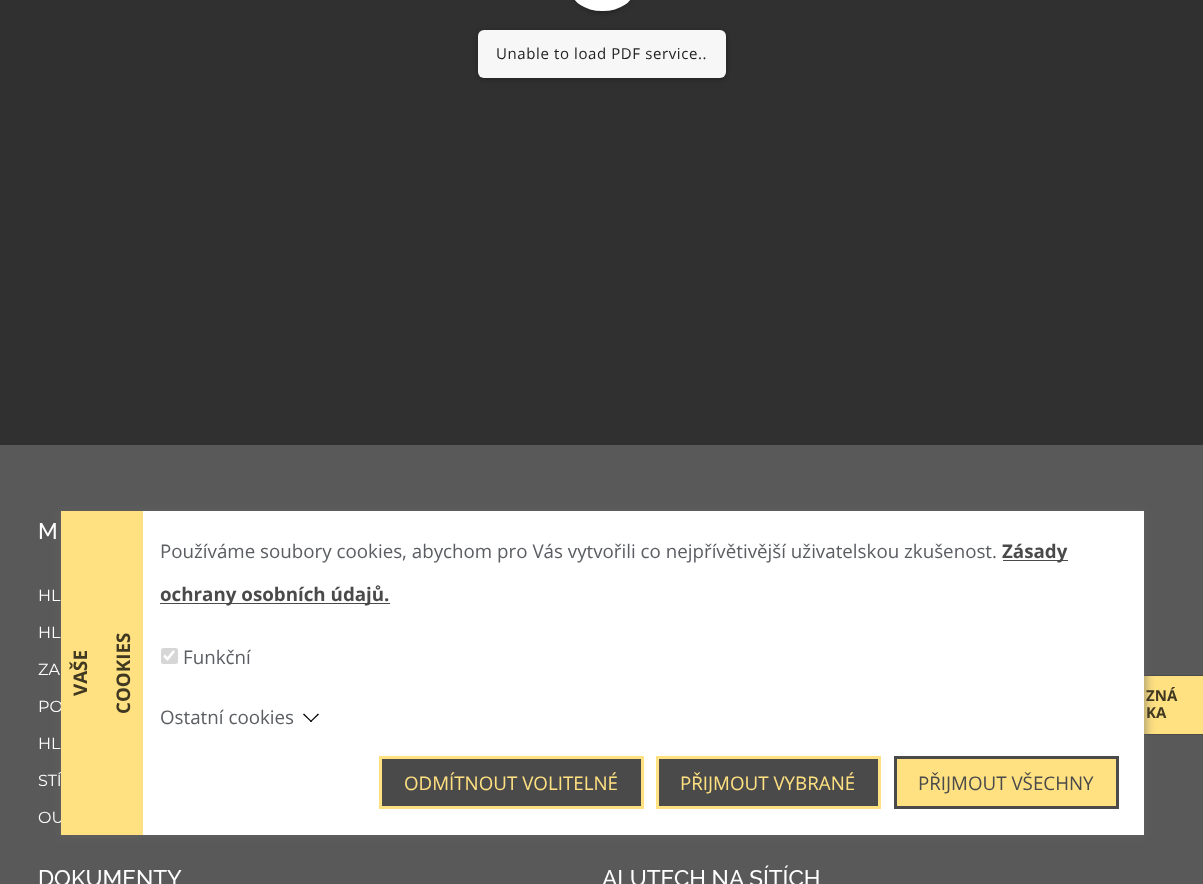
<svg xmlns="http://www.w3.org/2000/svg" width="1203" height="884">
<style>
.a{font:15px Open Sans;letter-spacing:0.6px;fill:#222}
.b{font:100 22.5px Raleway;fill:#fff}
.c{font:100 16px Montserrat;fill:#fff}
.d{font:bold 18.75px Open Sans;fill:#403821}
.e{font:18.75px Open Sans;fill:#5a5d62}
.f{font:bold 18.75px Open Sans;fill:#4a4a4a}
.g{font:18.75px Open Sans;fill:#ffe182}
.h{font:18.75px Open Sans;fill:#4a4a4a}
.i{font:bold 15px Open Sans;fill:#403821}
</style>
<rect width="100%" height="100%" fill="#303030"/>
<rect fill="#0000004d" filter="blur(2.5px)" x="571" y="-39" width="63" height="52" rx="31.5"/>
<rect fill="#fff" x="571" y="-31" width="63" height="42" rx="31"/>
<rect fill="#0000004d" filter="blur(2.5px)" x="478" y="31" width="248" height="48" rx="6"/>
<rect fill="#f7f7f7" x="478" y="30" width="248" height="48" rx="6"/>
<path fill="#595959" d="M0 445h1203v439H0z"/>
<path fill="#ffe182" d="M1144 676h59v58H1144z"/>
<path fill="none" stroke="#4a4a4a" d="M1029.5 675.5h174v59H1029.5z"/>
<path fill="#63636394" filter="blur(5px)" d="M59 509h1087v329H59z"/>
<path fill="#fff" d="M143 511h1001v324H143z"/>
<path fill="#4a4a4a" d="M1003 560h65v1H1003z"/>
<path fill="#4a4a4a" d="M160 603h230v1H160z"/>
<rect fill="#d6d6d6" x="161" y="648" width="17" height="16" rx="2.5"/>
<path fill="none" stroke="#fff" stroke-width="2.6" d="M164 655.5l3.5 3.5l6.5-8"/>
<path fill="#000" d="M318 713.5l1 1l-8 7.5l-1-.5z"/>
<path fill="#000" d="M304 713.5l8 8l-1 .5l-8-7.5z"/>
<path fill="#4a4a4a" stroke="#ffe182" stroke-width="3" d="M380.5 757.5h262v50H380.5z"/>
<path fill="#4a4a4a" stroke="#ffe182" stroke-width="3" d="M657.5 757.5h222v50H657.5z"/>
<path fill="#ffe182" stroke="#4a4a4a" stroke-width="3" d="M895.5 757.5h222v50H895.5z"/>
<text class="a" x="496" y="59">Unable to load PDF service..</text>
<text class="b" x="38" y="539">M</text>
<text class="c" x="38" y="601">HL</text>
<text class="c" x="38" y="638">HL</text>
<text class="c" x="38" y="675">ZA</text>
<text class="c" x="38" y="712">PO</text>
<text class="c" x="38" y="749">HL</text>
<text class="c" x="38" y="786">STÍ</text>
<text class="c" x="38" y="823">OU</text>
<text class="b" x="38" y="886">DOKUMENTY</text>
<text class="b" x="602" y="886">ALUTECH NA SÍTÍCH</text>
<path fill="#ffe182" d="M61 511h82v324H61z"/>
<text class="d" x="87" y="696" transform="rotate(-90 87 696)">VAŠE</text>
<text class="d" x="130" y="714" transform="rotate(-90 130 714)">COOKIES</text>
<text class="e" x="160" y="558">Používáme soubory cookies, abychom pro Vás vytvořili co nejpřívětivější uživatelskou zkušenost.</text>
<text class="f" x="1002" y="558">Zásady</text>
<text class="f" x="160" y="601">ochrany osobních údajů.</text>
<text class="e" x="183" y="664">Funkční</text>
<text class="e" x="160" y="724">Ostatní cookies</text>
<text class="g" x="404" y="790">ODMÍTNOUT VOLITELNÉ</text>
<text class="g" x="680" y="790">PŘIJMOUT VYBRANÉ</text>
<text class="h" x="918" y="790">PŘIJMOUT VŠECHNY</text>
<text class="i" x="1146" y="701">ZNÁ</text>
<text class="i" x="1146" y="718">KA</text>
</svg>
